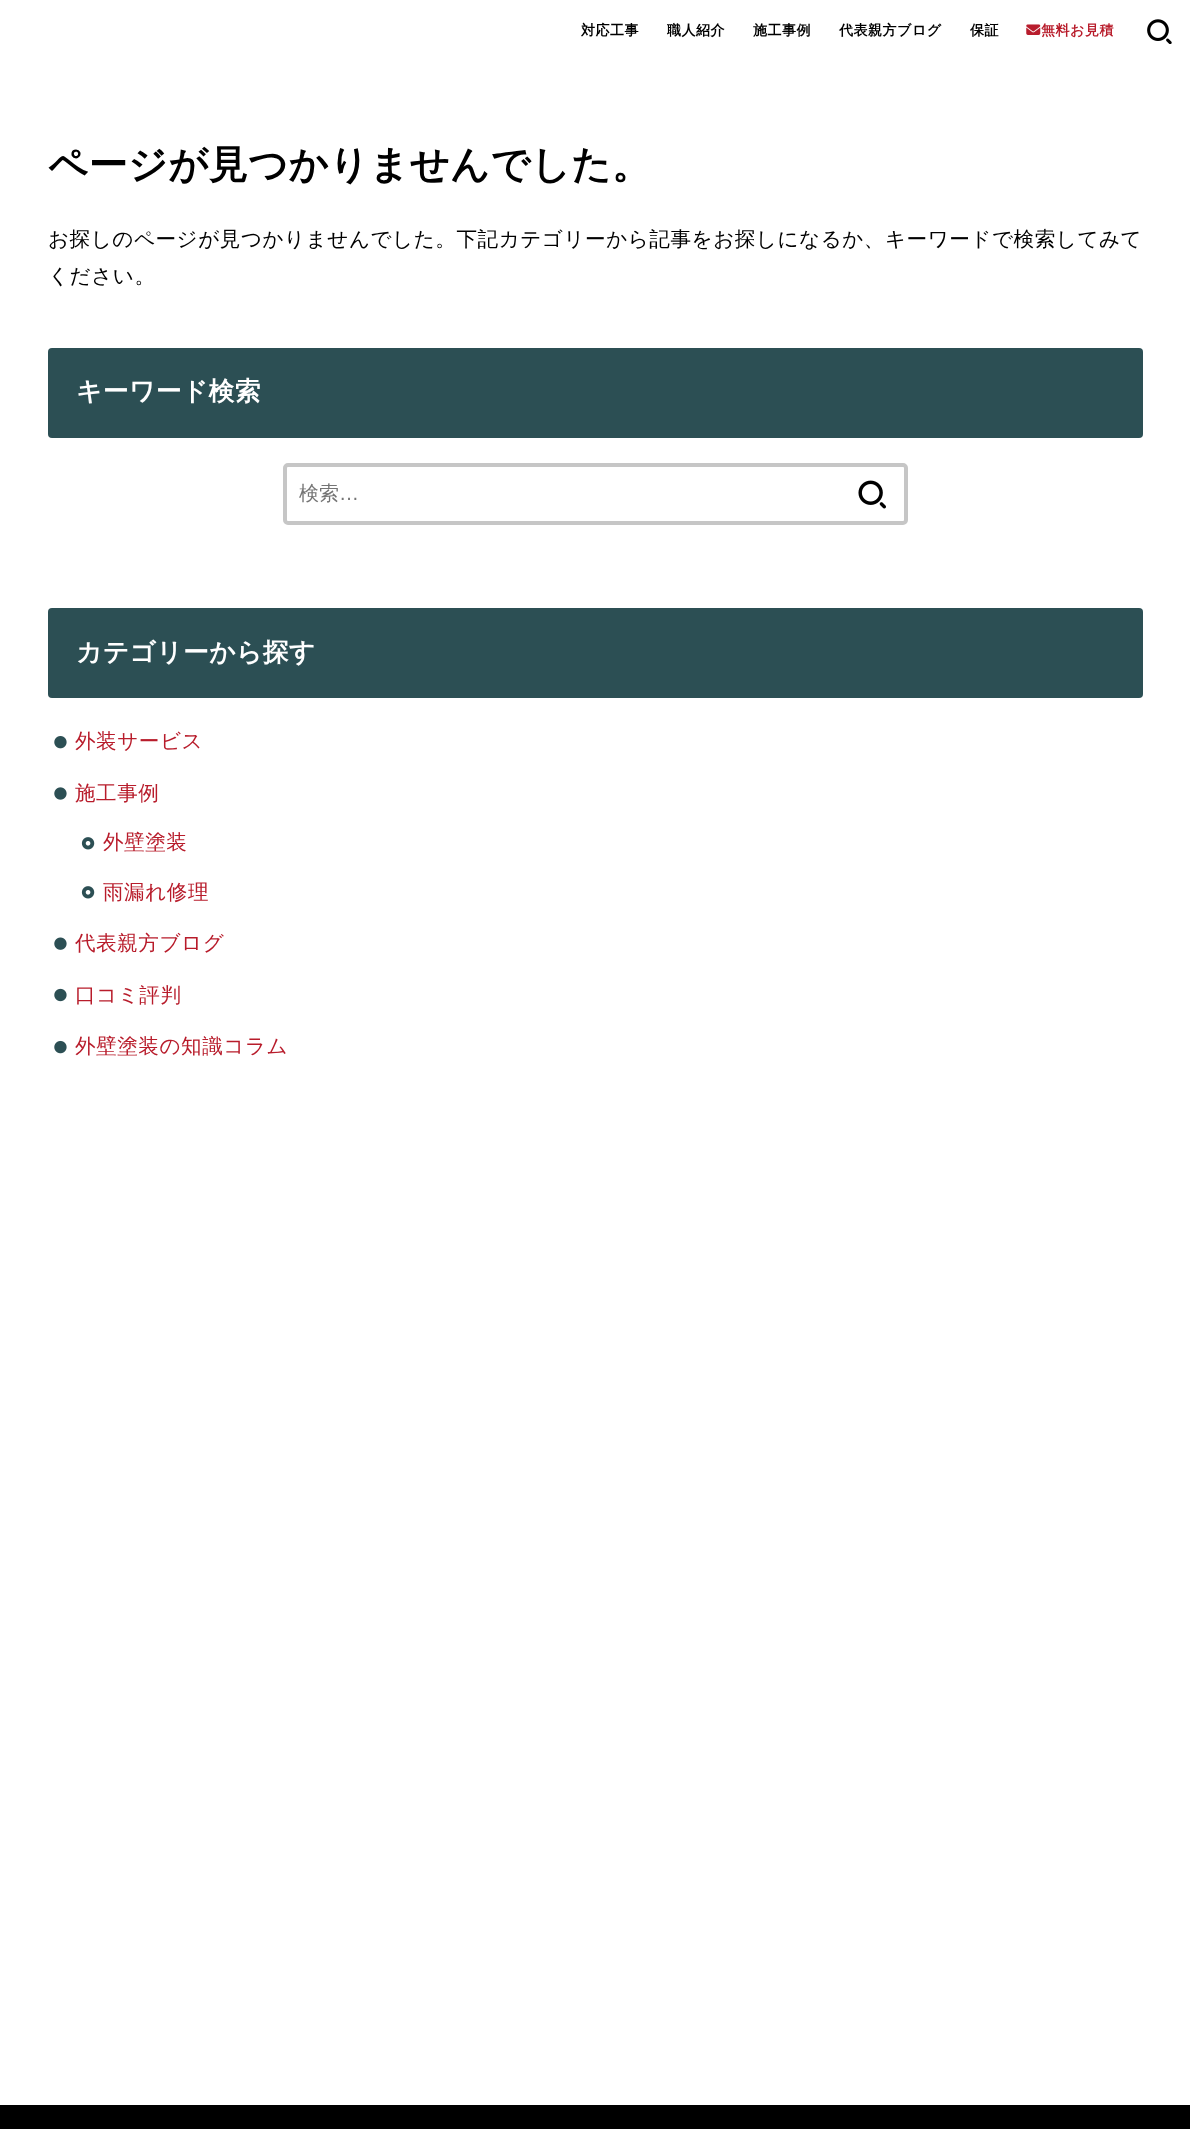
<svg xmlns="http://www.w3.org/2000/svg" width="1190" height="2129">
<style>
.a{font:bold 14px WenQuanYi Zen Hei;letter-spacing:0.52px;fill:#000}
.b{font:bold 14px WenQuanYi Zen Hei;letter-spacing:0.52px;fill:#b81c2b}
.c{font:bold 39.1px WenQuanYi Zen Hei;letter-spacing:0.4px;fill:#000}
.d{font:500 20.6px WenQuanYi Zen Hei;letter-spacing:0.52px;fill:#000}
.e{font:bold 25.75px WenQuanYi Zen Hei;letter-spacing:0.4px;fill:#fff}
.f{font:500 20px WenQuanYi Zen Hei;fill:#757575}
.g{font:20px Liberation Sans;fill:#757575}
.h{font:500 20.6px WenQuanYi Zen Hei;letter-spacing:0.52px;fill:#b81c2b}
</style>
<rect width="100%" height="100%" fill="#000"/>
<path fill="#fff" d="M0 0h1190v2105H0z"/>
<image href="1.png" x="1026" y="24" width="15" height="11"/>
<image href="2.png" x="1147" y="19" width="25" height="25"/>
<rect fill="#2c4f54" x="48" y="348" width="1095" height="90" rx="4"/>
<rect fill="none" stroke="#c6c6c6" stroke-width="4" x="285" y="465" width="621" height="58" rx="3"/>
<image href="3.png" x="858" y="480" width="28" height="29"/>
<rect fill="#2c4f54" x="48" y="608" width="1095" height="90" rx="4"/>
<image href="4.png" x="54" y="736" width="13" height="13"/>
<image href="5.png" x="54" y="787" width="13" height="13"/>
<image href="6.png" x="81" y="837" width="14" height="13"/>
<image href="7.png" x="81" y="886" width="14" height="13"/>
<image href="8.png" x="54" y="937" width="13" height="13"/>
<image href="9.png" x="54" y="988" width="13" height="14"/>
<image href="10.png" x="54" y="1040" width="13" height="14"/>
<text class="a" x="581" y="35">対応工事</text>
<text class="a" x="667" y="35">職人紹介</text>
<text class="a" x="753" y="35">施工事例</text>
<text class="a" x="839" y="35">代表親方ブログ</text>
<text class="a" x="970" y="35">保証</text>
<text class="b" x="1041" y="35">無料お見積</text>
<text class="c" x="48" y="178">ページが見つかりませんでした。</text>
<text class="d" x="48" y="246">お探しのページが見つかりませんでした。下記カテゴリーから記事をお探しになるか、キーワードで検索してみて</text>
<text class="d" x="48" y="283">ください。</text>
<text class="e" x="76" y="400">キーワード検索</text>
<text class="f" x="299" y="500">検索</text>
<text class="g" x="339" y="500">…</text>
<text class="e" x="76" y="661">カテゴリーから探す</text>
<text class="h" x="75" y="748">外装サービス</text>
<text class="h" x="75" y="800">施工事例</text>
<text class="h" x="103" y="849">外壁塗装</text>
<text class="h" x="103" y="899">雨漏れ修理</text>
<text class="h" x="75" y="950">代表親方ブログ</text>
<text class="h" x="75" y="1002">口コミ評判</text>
<text class="h" x="75" y="1053">外壁塗装の知識コラム</text>
</svg>
